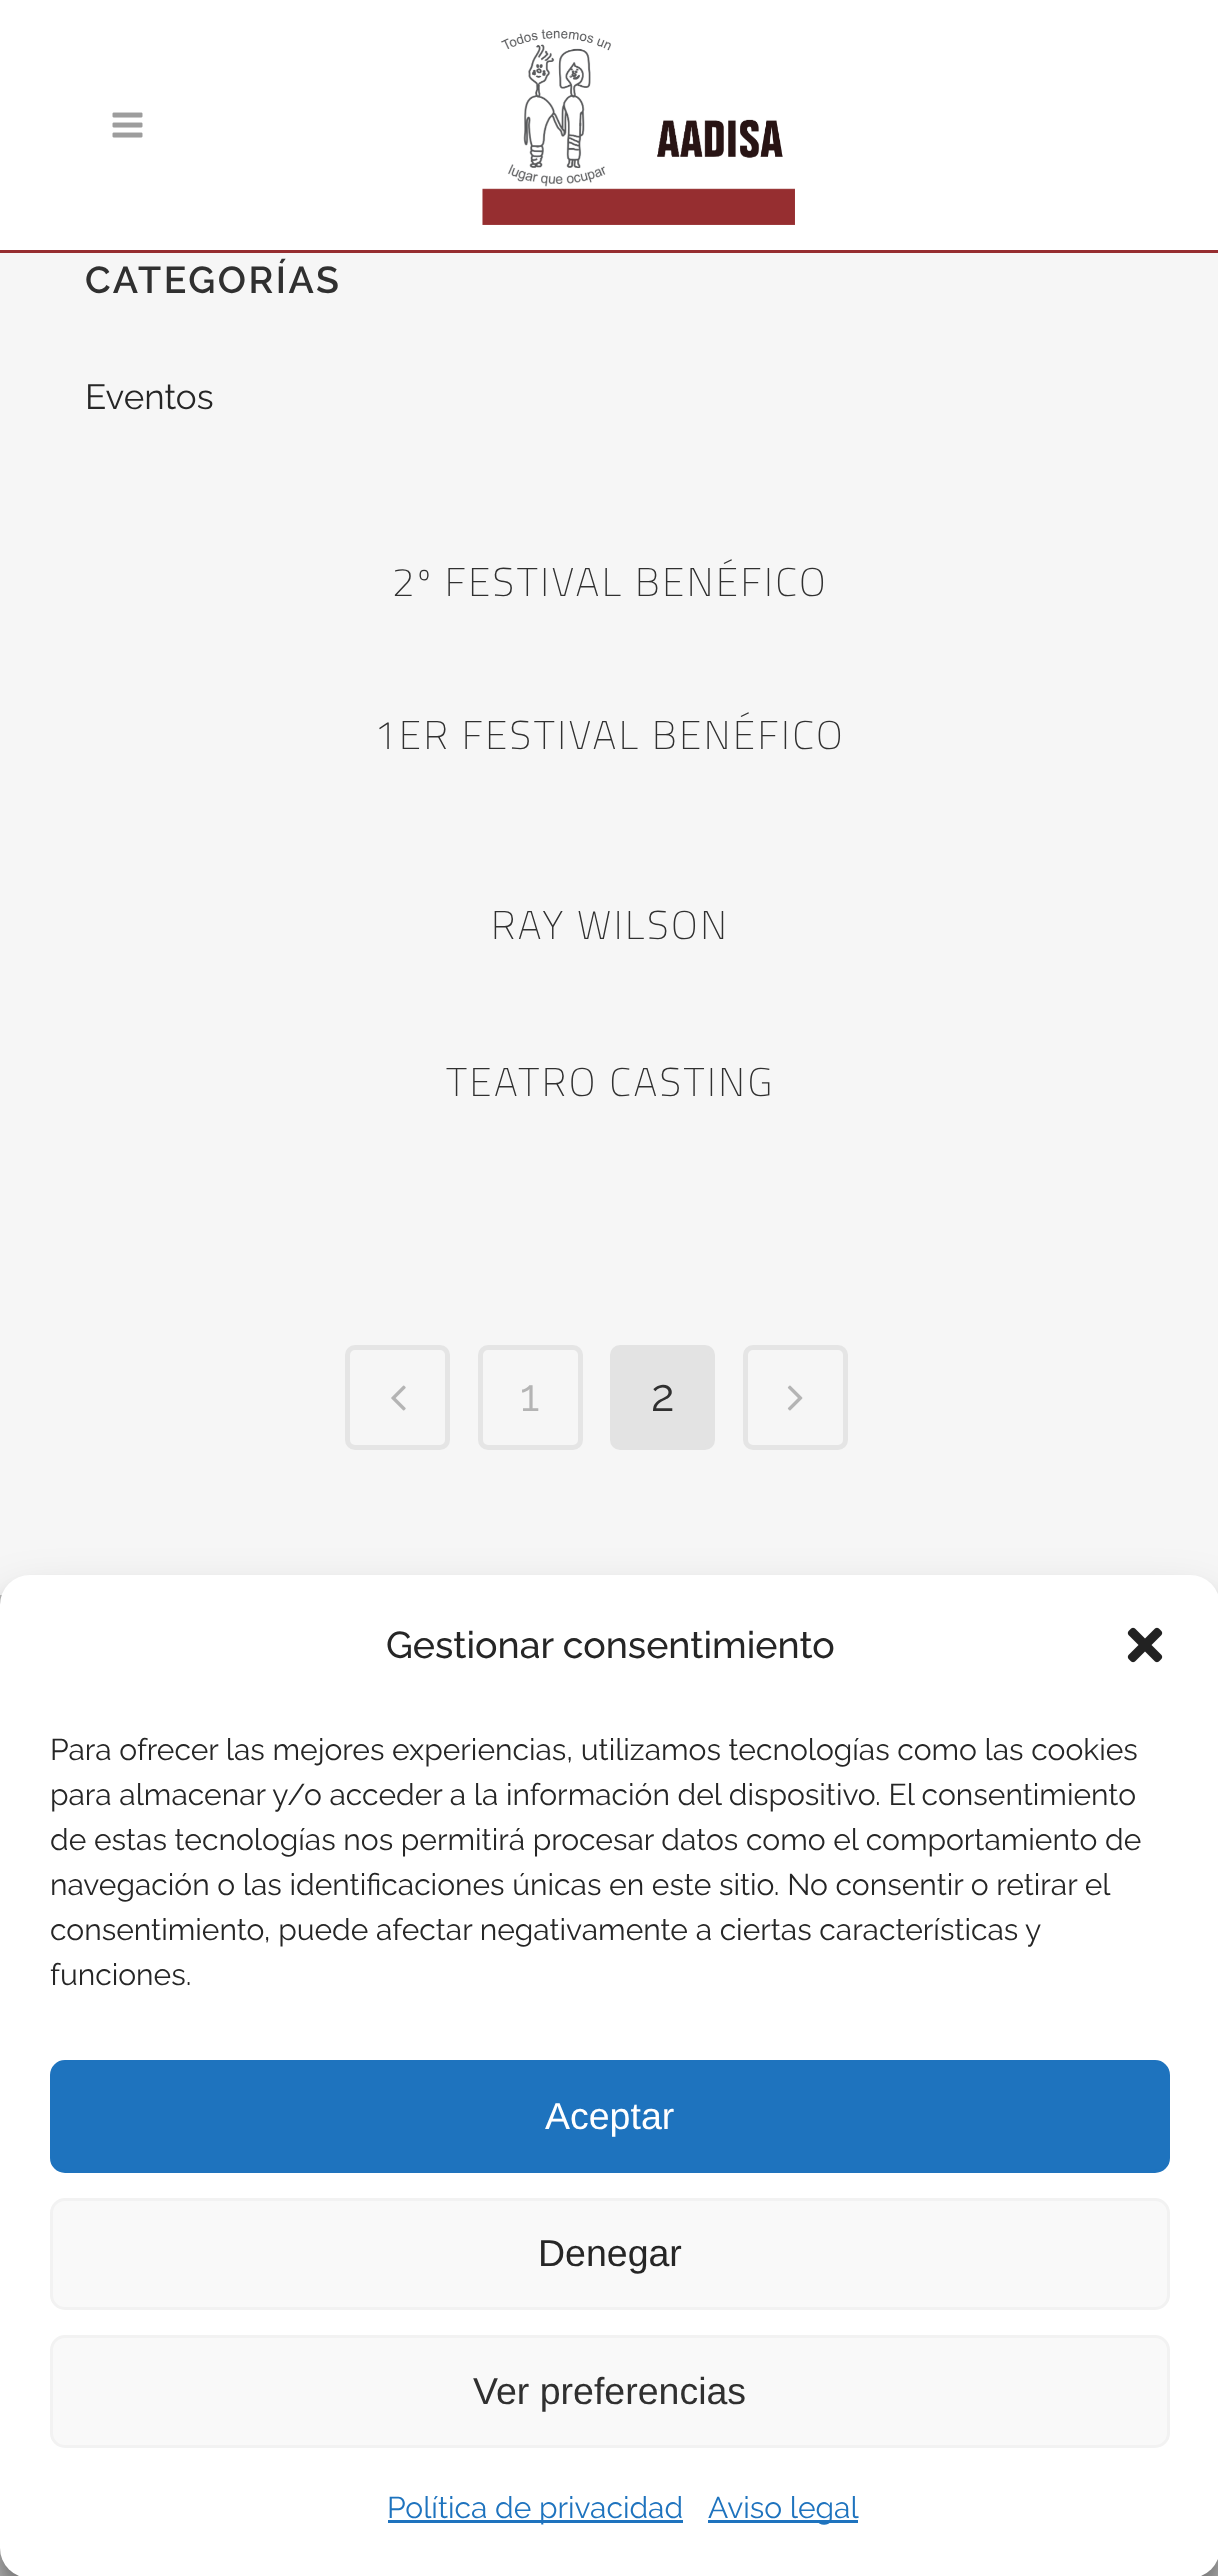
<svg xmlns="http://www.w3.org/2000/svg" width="1218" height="2576">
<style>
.a{font:600 37.5px Raleway;letter-spacing:2.5px;fill:#303030}
.b{font:35px Raleway;fill:#262626}
.c{font:200 40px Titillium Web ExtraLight;letter-spacing:2.5px;fill:#303030}
.d{font:45px Raleway;fill:#b4b4b4}
.e{font:45px Raleway;fill:#303030}
.f{font:500 37.5px Raleway;fill:#262626}
.g{font:30px Raleway;fill:#262626}
.h{font:37.5px Liberation Sans;fill:#fff}
.i{font:37.5px Liberation Sans;fill:#262626}
.j{font:37.5px Liberation Sans;fill:#303030}
.k{font:30px Raleway;fill:#1e73be}
</style>
<rect width="100%" height="100%" fill="#f6f6f6"/>
<path fill="#fff" d="M0 0h1218v250H0z"/>
<path fill="#962d30" d="M0 250h1218v3H0z"/>
<image href="1.png" x="112" y="112" width="31" height="26"/>
<image href="2.png" x="482" y="29" width="313" height="196"/>
<rect fill="none" stroke="#e5e5e5" stroke-width="5" x="347.5" y="1347.5" width="100" height="100" rx="7.5"/>
<image href="3.png" x="391" y="1385" width="15" height="26"/>
<rect fill="none" stroke="#e5e5e5" stroke-width="5" x="480.5" y="1347.5" width="100" height="100" rx="7.5"/>
<rect fill="#e3e3e3" stroke="#e3e3e3" stroke-width="5" x="612.5" y="1347.5" width="100" height="100" rx="7.5"/>
<rect fill="none" stroke="#e5e5e5" stroke-width="5" x="745.5" y="1347.5" width="100" height="100" rx="7.5"/>
<image href="4.png" x="787" y="1385" width="16" height="26"/>
<path fill="#bababa" d="M0 1595h1218v981H0z"/>
<rect fill="#0000003b" filter="blur(7.5px)" y="1590" width="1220" height="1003" rx="30"/>
<rect fill="#00000030" filter="blur(25px)" y="1600" width="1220" height="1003" rx="30"/>
<rect fill="#fff" y="1575" width="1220" height="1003" rx="30"/>
<image href="5.png" x="1127" y="1627" width="36" height="36"/>
<rect fill="#1e73be" stroke="#1e73be" stroke-width="3" x="51.5" y="2061.5" width="1117" height="110" rx="13.5"/>
<rect fill="#f9f9f9" stroke="#f2f2f2" stroke-width="3" x="51.5" y="2199.5" width="1117" height="109" rx="13.5"/>
<rect fill="#f9f9f9" stroke="#f2f2f2" stroke-width="3" x="51.5" y="2336.5" width="1117" height="110" rx="13.5"/>
<path fill="#1e73be" d="M388 2520h295v3H388z"/>
<path fill="#1e73be" d="M708 2520h150v3H708z"/>
<text class="a" x="85" y="293">CATEGORÍAS</text>
<text class="b" x="85" y="409">Eventos</text>
<text class="c" x="392" y="596">2º FESTIVAL BENÉFICO</text>
<text class="c" x="374" y="749">1ER FESTIVAL BENÉFICO</text>
<text class="c" x="491" y="939">RAY WILSON</text>
<text class="c" x="446" y="1096">TEATRO CASTING</text>
<text class="d" x="520" y="1411">1</text>
<text class="e" x="651" y="1411">2</text>
<text class="f" x="386" y="1658">Gestionar consentimiento</text>
<text class="g" x="50" y="1760">Para ofrecer las mejores experiencias, utilizamos tecnologías como las cookies</text>
<text class="g" x="50" y="1805">para almacenar y/o acceder a la información del dispositivo. El consentimiento</text>
<text class="g" x="50" y="1850">de estas tecnologías nos permitirá procesar datos como el comportamiento de</text>
<text class="g" x="50" y="1895">navegación o las identificaciones únicas en este sitio. No consentir o retirar el</text>
<text class="g" x="50" y="1940">consentimiento, puede afectar negativamente a ciertas características y</text>
<text class="g" x="50" y="1985">funciones.</text>
<text class="h" x="545" y="2129">Aceptar</text>
<text class="i" x="538" y="2266">Denegar</text>
<text class="j" x="473" y="2404">Ver preferencias</text>
<text class="k" x="387" y="2518">Política de privacidad</text>
<text class="k" x="708" y="2518">Aviso legal</text>
</svg>
